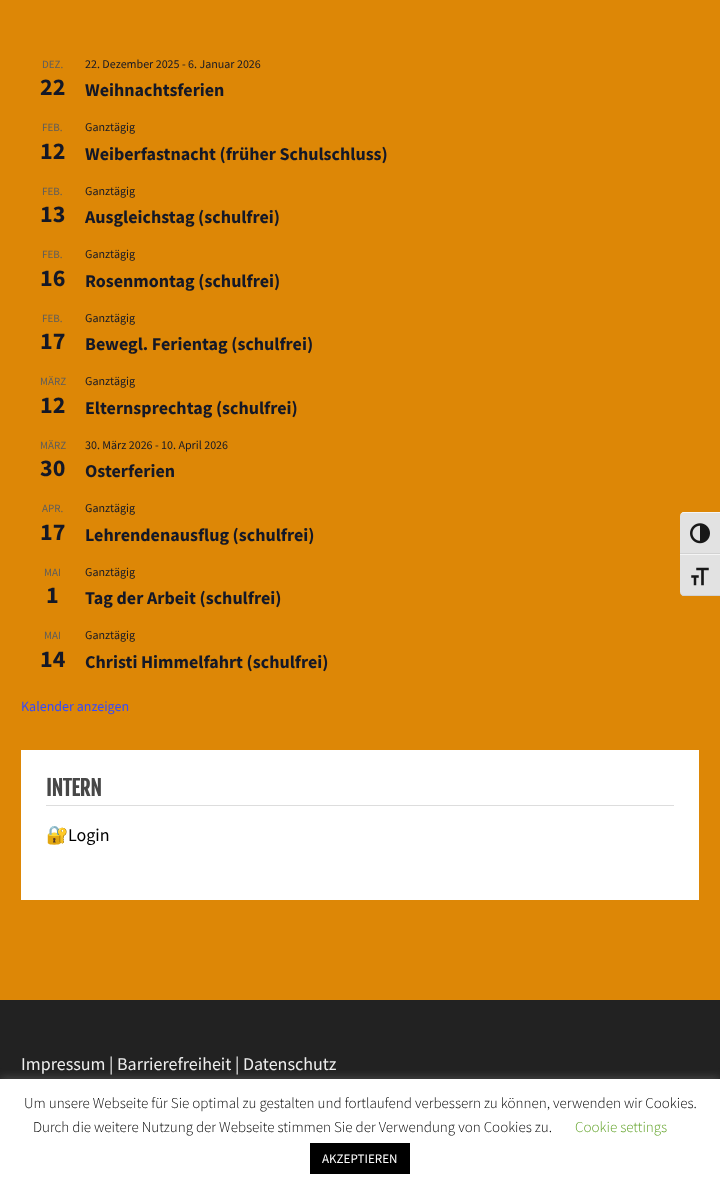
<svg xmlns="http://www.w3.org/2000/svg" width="720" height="1191">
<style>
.a{font:11px Source Sans Pro;fill:#5d5d5d}
.b{font:bold 24px Source Sans Pro;fill:#141827}
.c{font:12px Source Sans Pro;fill:#141827}
.d{font:bold 18px Source Sans Pro;fill:#141827}
.e{font:14px Source Sans Pro;fill:#334aff}
.f{font:bold 21px Fjalla One;fill:#474747}
.g{font:18px Noto Color Emoji;fill:#000}
.h{font:18px Source Sans Pro;fill:#000}
.i{font:18px Source Sans Pro;fill:#eee}
.j{font:300 15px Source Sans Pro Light;fill:#000}
.k{font:300 15px Source Sans Pro Light;fill:#62a329}
.l{font:13px Source Sans Pro;fill:#fff}
</style>
<rect width="100%" height="100%" fill="#dd8706"/>
<path fill="#fff" d="M21 750h678v150H21z"/>
<path fill="#ddd" d="M46 805h628v1H46z"/>
<path fill="#222" d="M0 1000h720v79H0z"/>
<path fill="#e2e2e2" d="M684 512h36v42h-40v-38c0-2 2-4 4-4z"/>
<path fill="#f5f5f5" d="M684 513h36v-1h-36c-2 0-4 2-4 4c0-2 2-3 4-3z"/>
<path fill="#d2d2d2" d="M680 553h40v1H680z"/>
<image href="1.png" x="690" y="523" width="20" height="21"/>
<path fill="#e2e2e2" d="M680 554h40v42h-36c-2 0-4-2-4-4z"/>
<path fill="#f5f5f5" d="M680 554h40v1H680z"/>
<path fill="#d2d2d2" d="M720 596v-1h-36c-2 0-4-1-4-3c0 2 2 4 4 4z"/>
<image href="2.png" x="691" y="567" width="18" height="19"/>
<path fill="#acabab4d" filter="blur(5px)" d="M0 1078h720v112H0z"/>
<path fill="#fff" d="M0 1079h720v112H0z"/>
<path fill="#000" d="M310 1143h100v31H310z"/>
<text class="a" x="42" y="68">DEZ.</text>
<text class="b" x="40" y="95">22</text>
<text class="c" x="85" y="68">22. Dezember 2025 - 6. Januar 2026</text>
<text class="d" x="85" y="96">Weihnachtsferien</text>
<text class="a" x="42" y="131">FEB.</text>
<text class="b" x="40" y="159">12</text>
<text class="c" x="85" y="131">Ganztägig</text>
<text class="d" x="85" y="160">Weiberfastnacht (früher Schulschluss)</text>
<text class="a" x="42" y="195">FEB.</text>
<text class="b" x="40" y="222">13</text>
<text class="c" x="85" y="195">Ganztägig</text>
<text class="d" x="85" y="223">Ausgleichstag (schulfrei)</text>
<text class="a" x="42" y="258">FEB.</text>
<text class="b" x="40" y="286">16</text>
<text class="c" x="85" y="258">Ganztägig</text>
<text class="d" x="85" y="287">Rosenmontag (schulfrei)</text>
<text class="a" x="42" y="322">FEB.</text>
<text class="b" x="40" y="349">17</text>
<text class="c" x="85" y="322">Ganztägig</text>
<text class="d" x="85" y="350">Bewegl. Ferientag (schulfrei)</text>
<text class="a" x="40" y="385">MÄRZ</text>
<text class="b" x="40" y="413">12</text>
<text class="c" x="85" y="385">Ganztägig</text>
<text class="d" x="85" y="414">Elternsprechtag (schulfrei)</text>
<text class="a" x="40" y="449">MÄRZ</text>
<text class="b" x="40" y="476">30</text>
<text class="c" x="85" y="449">30. März 2026 - 10. April 2026</text>
<text class="d" x="85" y="477">Osterferien</text>
<text class="a" x="42" y="512">APR.</text>
<text class="b" x="40" y="540">17</text>
<text class="c" x="85" y="512">Ganztägig</text>
<text class="d" x="85" y="541">Lehrendenausflug (schulfrei)</text>
<text class="a" x="44" y="576">MAI</text>
<text class="b" x="46" y="603">1</text>
<text class="c" x="85" y="576">Ganztägig</text>
<text class="d" x="85" y="604">Tag der Arbeit (schulfrei)</text>
<text class="a" x="44" y="639">MAI</text>
<text class="b" x="40" y="667">14</text>
<text class="c" x="85" y="639">Ganztägig</text>
<text class="d" x="85" y="668">Christi Himmelfahrt (schulfrei)</text>
<text class="e" x="21" y="711">Kalender anzeigen</text>
<text class="f" x="46" y="796">INTERN</text>
<text class="g" x="46" y="841">🔐</text>
<text class="h" x="68" y="841">Login</text>
<text class="i" x="21" y="1070">Impressum | Barrierefreiheit | Datenschutz</text>
<text class="j" x="24" y="1108">Um unsere Webseite für Sie optimal zu gestalten und fortlaufend verbessern zu können, verwenden wir Cookies.</text>
<text class="j" x="33" y="1132">Durch die weitere Nutzung der Webseite stimmen Sie der Verwendung von Cookies zu.</text>
<text class="k" x="575" y="1132">Cookie settings</text>
<text class="l" x="322" y="1163">AKZEPTIEREN</text>
</svg>
